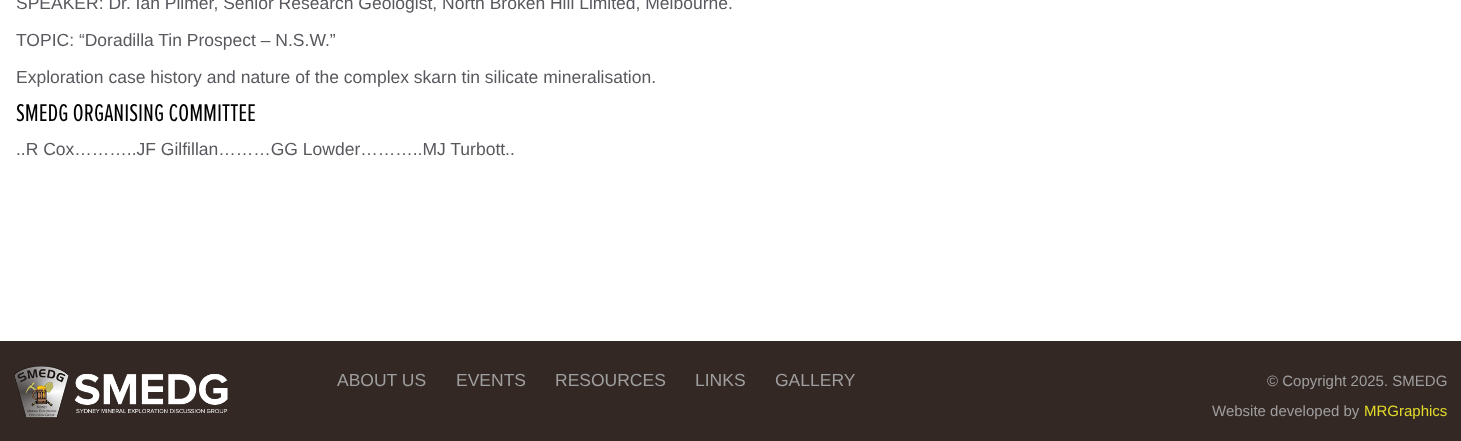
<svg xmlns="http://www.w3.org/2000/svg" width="1461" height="441">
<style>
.a{font:17.5px Liberation Sans;fill:#59585e}
.b{font:25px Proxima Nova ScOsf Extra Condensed;fill:#000}
.c{font:17.5px Liberation Sans;fill:#9f9f9f}
.d{font:15px Liberation Sans;fill:#9f9f9f}
.e{font:15px Liberation Sans;fill:#e2db28}
</style>
<rect width="100%" height="100%" fill="#fff"/>
<path fill="#342825" d="M0 341h1461v100H0z"/>
<image href="1.png" x="13" y="366" width="215" height="52"/>
<text class="a" x="16" y="9">SPEAKER: Dr. Ian Plimer, Senior Research Geologist, North Broken Hill Limited, Melbourne.</text>
<text class="a" x="16" y="46">TOPIC: “Doradilla Tin Prospect – N.S.W.”</text>
<text class="a" x="16" y="83">Exploration case history and nature of the complex skarn tin silicate mineralisation.</text>
<text class="b" x="16" y="121">SMEDG ORGANISING COMMITTEE</text>
<text class="a" x="16" y="155">..R Cox………..JF Gilfillan………GG Lowder………..MJ Turbott..</text>
<text class="c" x="337" y="386">ABOUT US</text>
<text class="c" x="456" y="386">EVENTS</text>
<text class="c" x="555" y="386">RESOURCES</text>
<text class="c" x="695" y="386">LINKS</text>
<text class="c" x="775" y="386">GALLERY</text>
<text class="d" x="1267" y="386">© Copyright 2025. SMEDG</text>
<text class="d" x="1212" y="416">Website developed by</text>
<text class="e" x="1364" y="416">MRGraphics</text>
</svg>
